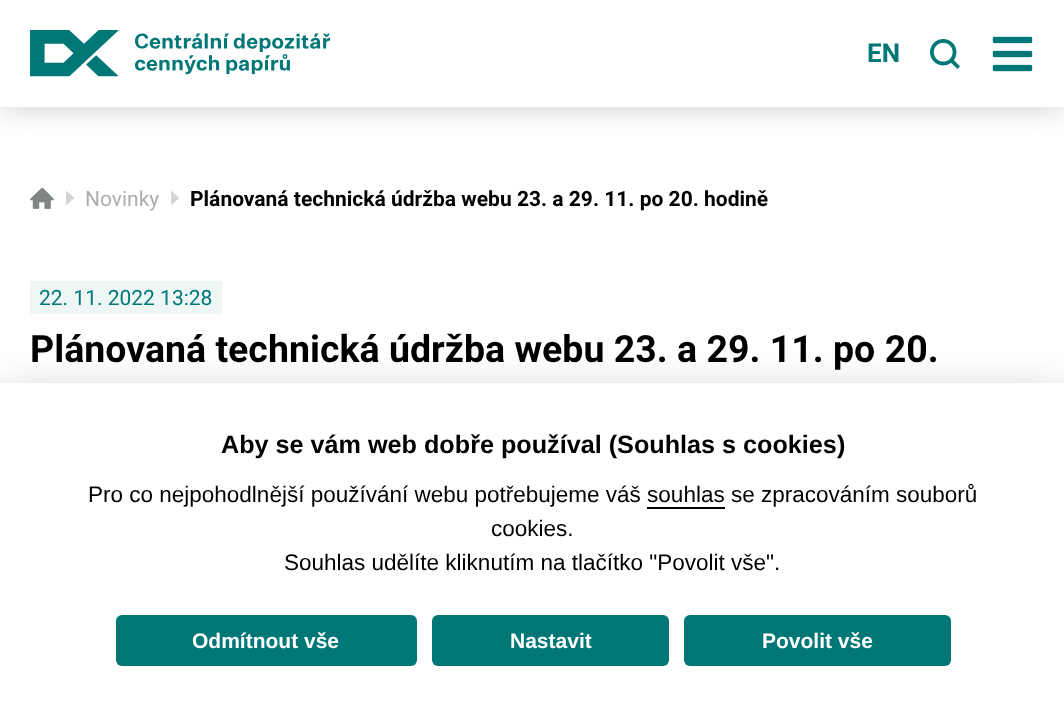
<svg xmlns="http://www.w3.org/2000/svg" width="1064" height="721">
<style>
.a{font:bold 26px Roboto;fill:#077}
.b{font:21px Roboto;fill:#abaeae}
.c{font:bold 21px Roboto;fill:#000}
.d{font:21px Roboto;fill:#077}
.e{font:bold 37.5px Roboto;fill:#000}
.f{font:bold 25.2px Liberation Sans;fill:#000}
.g{font:22.5px Liberation Sans;fill:#000}
.h{font:bold 21px Liberation Sans;fill:#fff}
</style>
<defs>
<clipPath id="clip1"><path d="M66 191h8v15H66z"/></clipPath>
<clipPath id="clip2"><path d="M171 191h8v15H171z"/></clipPath>
</defs>
<rect width="100%" height="100%" fill="#fff"/>
<path fill="#00000033" filter="blur(15px)" d="M0 0h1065v107H0z"/>
<path fill="#fff" d="M0 0h1064v107H0z"/>
<image href="1.png" x="30" y="30" width="300" height="47"/>
<image href="2.png" x="930" y="39" width="30" height="30"/>
<image href="3.png" x="992" y="36" width="41" height="36"/>
<image href="4.png" x="30" y="188" width="24" height="21"/>
<g clip-path="url(#clip1)">
<path fill="#d4d6d6" d="M66 205.5l8.5-7.5l-8.5-7.5z"/>
</g>
<g clip-path="url(#clip2)">
<path fill="#d4d6d6" d="M171 205.5l8.5-7.5l-8.5-7.5z"/>
</g>
<path fill="#eff6f6" d="M30 281h192v33H30z"/>
<path fill="#02020347" filter="blur(22.5px)" d="M0 398h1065v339H0z"/>
<path fill="#fff" d="M0 383h1064v338H0z"/>
<path fill="#000" d="M647 507h78v2H647z"/>
<rect fill="#077" x="116" y="615" width="301" height="51" rx="6"/>
<rect fill="#077" x="432" y="615" width="237" height="51" rx="6"/>
<rect fill="#077" x="684" y="615" width="267" height="51" rx="6"/>
<text class="a" x="867" y="62">EN</text>
<text class="b" x="85" y="206">Novinky</text>
<text class="c" x="190" y="206">Plánovaná technická údržba webu 23. a 29. 11. po 20. hodině</text>
<text class="d" x="39" y="305">22. 11. 2022 13:28</text>
<text class="e" x="30" y="362">Plánovaná technická údržba webu 23. a 29. 11. po 20.</text>
<text class="f" x="221" y="453">Aby se vám web dobře používal (Souhlas s cookies)</text>
<text class="g" x="88" y="502">Pro co nejpohodlnější používání webu potřebujeme váš souhlas se zpracováním souborů</text>
<text class="g" x="491" y="536">cookies.</text>
<text class="g" x="284" y="570">Souhlas udělíte kliknutím na tlačítko "Povolit vše".</text>
<text class="h" x="192" y="648">Odmítnout vše</text>
<text class="h" x="510" y="648">Nastavit</text>
<text class="h" x="762" y="648">Povolit vše</text>
</svg>
